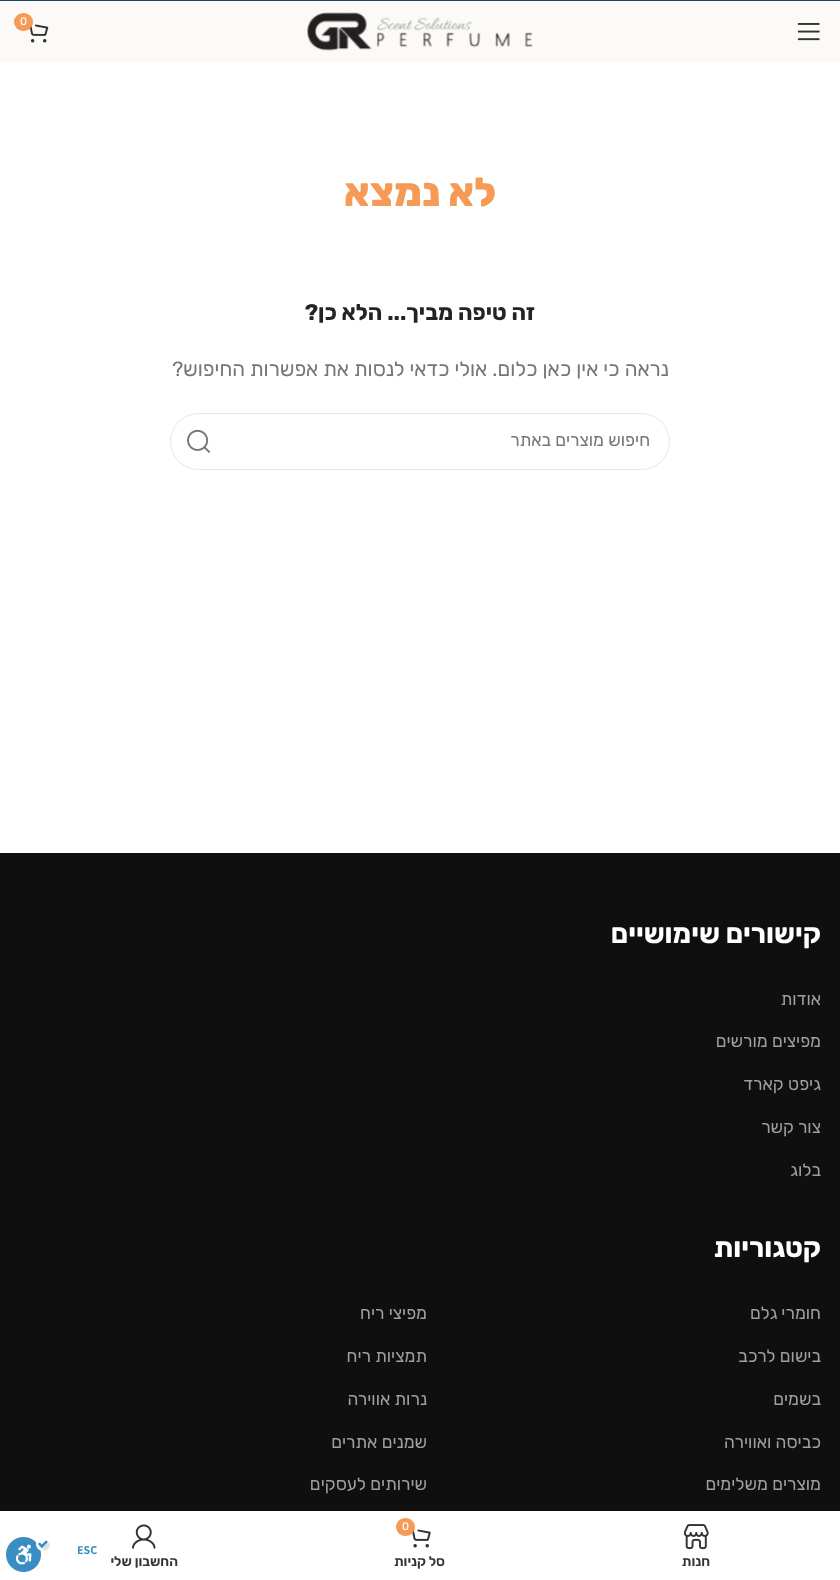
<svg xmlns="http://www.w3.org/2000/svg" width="840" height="1580">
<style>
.a{font:11px Rubik;fill:#fff}
.b{font:800 40px Rubik;direction:rtl;fill:#f59a57}
.c{font:bold 22.5px Rubik;direction:rtl;fill:#242424}
.d{font:20.6px Rubik;direction:rtl;fill:#767676}
.e{font:17.5px Rubik;direction:rtl;fill:#767676}
.f{font:bold 27.5px Rubik;direction:rtl;fill:#fff}
.g{font:17.5px Rubik;direction:rtl;fill:#9f9f9f}
.h{font:600 13.75px Rubik;direction:rtl;fill:#333}
.i{font:bold 12px Assistant;fill:#3a8dc2}
</style>
<rect width="100%" height="100%" fill="#fff"/>
<path fill="#fbfaf7" d="M0 1h840v62H0z"/>
<image href="1.png" x="307" y="12" width="226" height="39"/>
<image href="2.png" x="29" y="24" width="20" height="19"/>
<rect fill="#f59a57" x="14" y="13" width="19" height="18" rx="9"/>
<image href="3.png" x="797" y="23" width="23" height="18"/>
<rect fill="none" stroke="#e6e6e6" x="170.5" y="413.5" width="499" height="56" rx="28"/>
<image href="4.png" x="187" y="429" width="23" height="24"/>
<path fill="#0f0f0f" d="M0 853h840v658H0z"/>
<image href="5.png" x="683" y="1524" width="26" height="26"/>
<image href="6.png" x="412" y="1529" width="19" height="19"/>
<rect fill="#f59a57" x="396" y="1518" width="19" height="18" rx="9"/>
<image href="7.png" x="132" y="1524" width="24" height="25"/>
<path fill="#15495f" d="M0 0h840v1H0z"/>
<image href="8.png" x="6" y="1537" width="44" height="35"/>
<text class="a" x="20" y="25">0</text>
<text class="b" x="496" y="206">לא נמצא</text>
<text class="c" x="535" y="320">זה טיפה מביך... הלא כן?</text>
<text class="d" x="669" y="376">נראה כי אין כאן כלום. אולי כדאי לנסות את אפשרות החיפוש?</text>
<text class="e" x="650" y="446">חיפוש מוצרים באתר</text>
<text class="f" x="821" y="943">קישורים שימושיים</text>
<text class="g" x="821" y="1005">אודות</text>
<text class="g" x="821" y="1047">מפיצים מורשים</text>
<text class="g" x="821" y="1090">גיפט קארד</text>
<text class="g" x="821" y="1133">צור קשר</text>
<text class="g" x="821" y="1176">בלוג</text>
<text class="f" x="821" y="1257">קטגוריות</text>
<text class="g" x="821" y="1319">חומרי גלם</text>
<text class="g" x="821" y="1362">בישום לרכב</text>
<text class="g" x="821" y="1405">בשמים</text>
<text class="g" x="821" y="1448">כביסה ואווירה</text>
<text class="g" x="821" y="1490">מוצרים משלימים</text>
<text class="g" x="427" y="1319">מפיצי ריח</text>
<text class="g" x="427" y="1362">תמציות ריח</text>
<text class="g" x="427" y="1405">נרות אווירה</text>
<text class="g" x="427" y="1448">שמנים אתרים</text>
<text class="g" x="427" y="1490">שירותים לעסקים</text>
<text class="h" x="710" y="1566">חנות</text>
<text class="a" x="402" y="1530">0</text>
<text class="h" x="445" y="1566">סל קניות</text>
<text class="h" x="178" y="1566">החשבון שלי</text>
<rect fill="#fff" x="61" y="1541" width="53" height="18" rx="5"/>
<text class="i" x="77" y="1554">ESC</text>
</svg>
